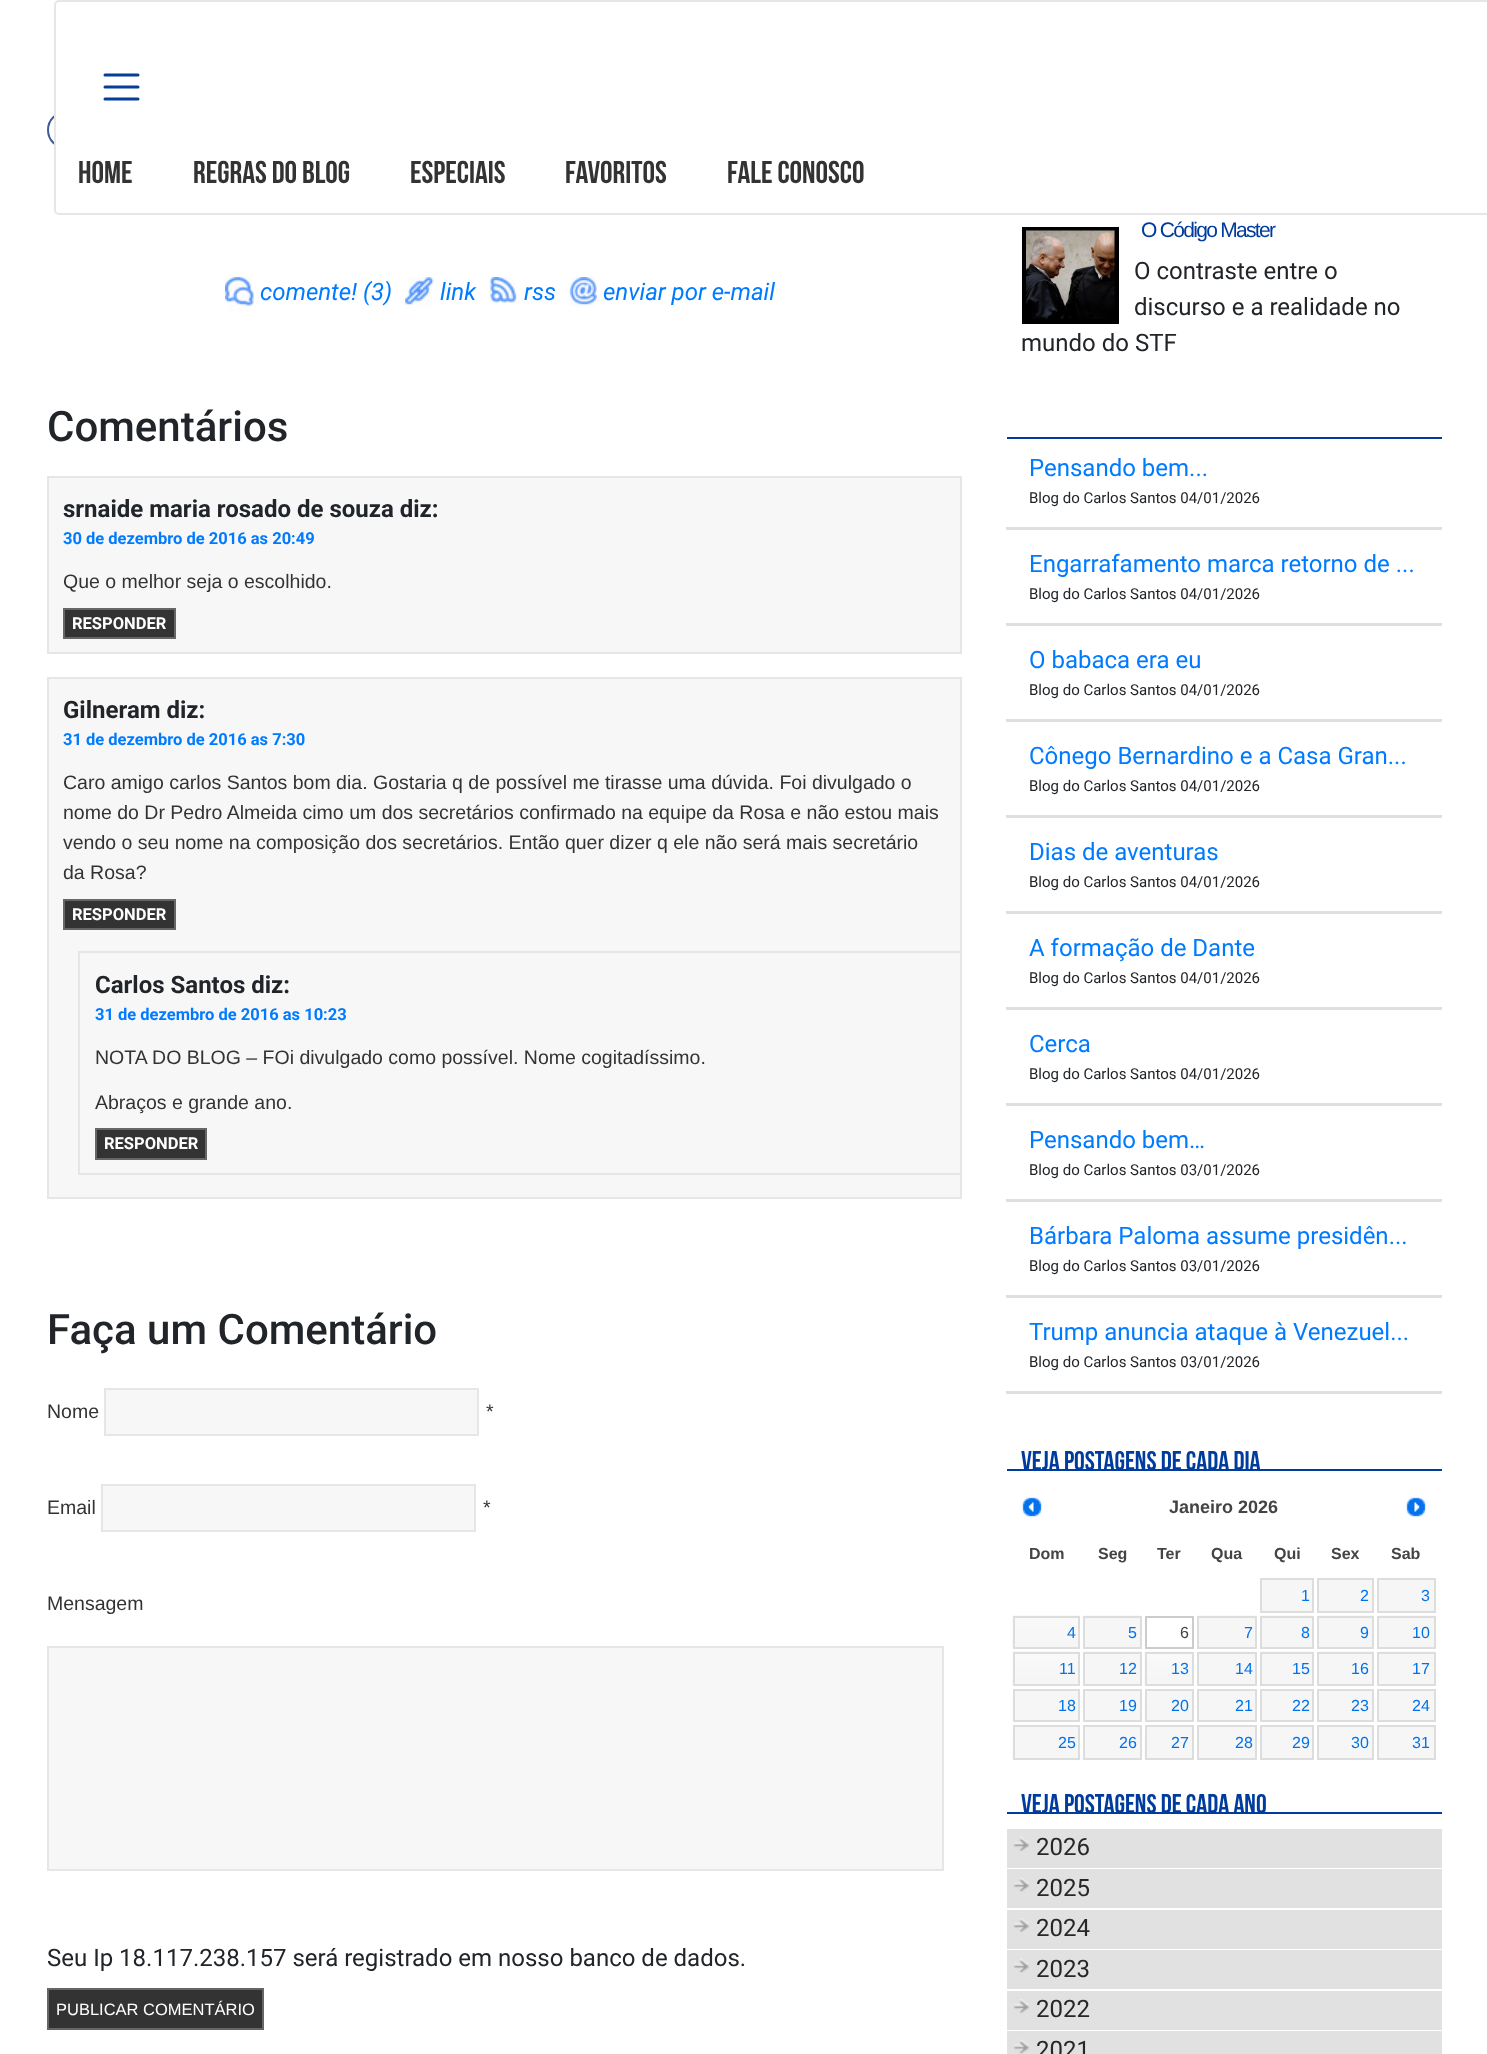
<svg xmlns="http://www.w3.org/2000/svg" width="1487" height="2054">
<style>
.a{font:31.5px Bebas Neue;fill:#333}
.b{font:italic 24px Roboto;fill:#007bff}
.c{font:500 42px Roboto;fill:#212529}
.d{font:bold 24px Roboto;fill:#212529}
.e{font:bold 16.5px Roboto;fill:#007bff}
.f{font:19.5px Liberation Sans;fill:#333}
.g{font:bold 16.5px Roboto;fill:#fff}
.h{font:24px Roboto;fill:#212529}
.i{font:16.5px Liberation Sans;fill:#fff}
.j{font:21px Liberation Sans;letter-spacing:-1.7px;fill:#003c9d}
.k{font:24px Roboto;fill:#007bff}
.l{font:15px Roboto;fill:#212529}
.m{font:27px Bebas Neue;fill:#003c9d}
.n{font:bold 18px Liberation Sans;fill:#444}
.o{font:bold 16px Liberation Sans;fill:#444}
.p{font:16px Liberation Sans;fill:#0073ea}
.q{font:16px Liberation Sans;fill:#444}
.r{font:24px Roboto;fill:#272727}
</style>
<rect width="100%" height="100%" fill="#fff"/>
<rect fill="none" stroke="#3e5b98" stroke-width="2" x="48" y="112" width="173" height="36" rx="18"/>
<rect fill="#fff" stroke="#e6e6e6" stroke-width="2" x="55" y="1" width="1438" height="213" rx="4"/>
<path fill="none" stroke="#053d97" stroke-width="3" stroke-linecap="round" d="M105 75h33m-33 12h33m-33 12h33"/>
<image href="1.png" x="225" y="277" width="29" height="35"/>
<image href="2.png" x="405" y="277" width="29" height="33"/>
<image href="3.png" x="489" y="277" width="28" height="26"/>
<image href="4.png" x="569" y="277" width="28" height="30"/>
<path fill="#f7f7f7" stroke="#e6e6e6" stroke-width="2" d="M48 477h913v176H48z"/>
<path fill="#333" stroke="#666" stroke-width="2" d="M64 609h111v29H64z"/>
<path fill="#f7f7f7" stroke="#e6e6e6" stroke-width="2" d="M48 678h913v520H48z"/>
<path fill="#333" stroke="#666" stroke-width="2" d="M64 900h111v29H64z"/>
<path fill="none" stroke="#e6e6e6" stroke-width="2" d="M79 952h882v222H79z"/>
<path fill="#333" stroke="#666" stroke-width="2" d="M96 1129h110v30H96z"/>
<path fill="#f7f7f7" stroke="#e6e6e6" stroke-width="2" d="M105 1389h373v46H105z"/>
<path fill="#f7f7f7" stroke="#e6e6e6" stroke-width="2" d="M102 1485h373v46H102z"/>
<path fill="#f7f7f7" stroke="#e6e6e6" stroke-width="2" d="M48 1647h895v223H48z"/>
<path fill="#333" stroke="#666" stroke-width="2" d="M48 1989h215v40H48z"/>
<path fill="#000" d="M1022 227h97v97H1022z"/>
<image href="5.png" x="1026" y="230" width="89" height="89"/>
<path fill="#003c9d" d="M1007 437h435v2H1007z"/>
<path fill="#e0e0e0" d="M1006 527h436v3H1006z"/>
<path fill="#e0e0e0" d="M1006 623h436v3H1006z"/>
<path fill="#e0e0e0" d="M1006 719h436v3H1006z"/>
<path fill="#e0e0e0" d="M1006 815h436v3H1006z"/>
<path fill="#e0e0e0" d="M1006 911h436v3H1006z"/>
<path fill="#e0e0e0" d="M1006 1007h436v3H1006z"/>
<path fill="#e0e0e0" d="M1006 1103h436v3H1006z"/>
<path fill="#e0e0e0" d="M1006 1199h436v3H1006z"/>
<path fill="#e0e0e0" d="M1006 1295h436v3H1006z"/>
<path fill="#e0e0e0" d="M1006 1391h436v3H1006z"/>
<path fill="#003c9d" d="M1007 1469h435v2H1007z"/>
<image href="6.png" x="1022" y="1497" width="20" height="20"/>
<image href="7.png" x="1406" y="1497" width="20" height="20"/>
<path fill="#f6f6f6" stroke="#ddd" stroke-width="2" d="M1261 1579h52v33H1261z"/>
<path fill="#f6f6f6" stroke="#ddd" stroke-width="2" d="M1318 1579h55v33H1318z"/>
<path fill="#f6f6f6" stroke="#ddd" stroke-width="2" d="M1378 1579h57v33H1378z"/>
<image href="8.png" x="1012" y="1615" width="68" height="33"/>
<path fill="none" stroke="#ddd" stroke-width="2" d="M1014 1617h65v31H1014z"/>
<path fill="#f6f6f6" stroke="#ddd" stroke-width="2" d="M1084 1617h57v31H1084z"/>
<path fill="#fafafa" d="M1083 1615h58v1H1083z"/>
<path fill="none" stroke="#ccc" stroke-width="2" d="M1146 1617h47v31H1146z"/>
<path fill="#f6f6f6" stroke="#ddd" stroke-width="2" d="M1198 1617h58v31H1198z"/>
<path fill="#fafafa" d="M1197 1615h60v1H1197z"/>
<path fill="#f6f6f6" stroke="#ddd" stroke-width="2" d="M1261 1617h52v31H1261z"/>
<path fill="#fafafa" d="M1260 1615h54v1H1260z"/>
<path fill="#f6f6f6" stroke="#ddd" stroke-width="2" d="M1318 1617h55v31H1318z"/>
<path fill="#fafafa" d="M1317 1615h57v1H1317z"/>
<path fill="#f6f6f6" stroke="#ddd" stroke-width="2" d="M1378 1617h57v31H1378z"/>
<path fill="#fafafa" d="M1377 1615h58v1H1377z"/>
<image href="9.png" x="1012" y="1651" width="68" height="34"/>
<path fill="none" stroke="#ddd" stroke-width="2" d="M1014 1653h65v32H1014z"/>
<path fill="#f6f6f6" stroke="#ddd" stroke-width="2" d="M1084 1653h57v32H1084z"/>
<path fill="#fafafa" d="M1083 1651h58v1H1083z"/>
<image href="10.png" x="1144" y="1651" width="50" height="34"/>
<path fill="none" stroke="#ddd" stroke-width="2" d="M1146 1653h47v32H1146z"/>
<path fill="#f6f6f6" stroke="#ddd" stroke-width="2" d="M1198 1653h58v32H1198z"/>
<path fill="#fafafa" d="M1197 1651h60v1H1197z"/>
<path fill="#f6f6f6" stroke="#ddd" stroke-width="2" d="M1261 1653h52v32H1261z"/>
<path fill="#fafafa" d="M1260 1651h54v1H1260z"/>
<path fill="#f6f6f6" stroke="#ddd" stroke-width="2" d="M1318 1653h55v32H1318z"/>
<path fill="#fafafa" d="M1317 1651h57v1H1317z"/>
<path fill="#f6f6f6" stroke="#ddd" stroke-width="2" d="M1378 1653h57v32H1378z"/>
<path fill="#fafafa" d="M1377 1651h58v1H1377z"/>
<path fill="#f6f6f6" stroke="#ddd" stroke-width="2" d="M1014 1690h65v31H1014z"/>
<path fill="#fbfbfb" d="M1012 1699h1v22H1012z"/>
<path fill="#f6f6f6" stroke="#ddd" stroke-width="2" d="M1084 1690h57v31H1084z"/>
<path fill="#f6f6f6" stroke="#ddd" stroke-width="2" d="M1146 1690h47v31H1146z"/>
<path fill="#fbfbfb" d="M1144 1699h1v22H1144z"/>
<path fill="#f6f6f6" stroke="#ddd" stroke-width="2" d="M1198 1690h58v31H1198z"/>
<path fill="#f6f6f6" stroke="#ddd" stroke-width="2" d="M1261 1690h52v31H1261z"/>
<path fill="#f6f6f6" stroke="#ddd" stroke-width="2" d="M1318 1690h55v31H1318z"/>
<path fill="#f6f6f6" stroke="#ddd" stroke-width="2" d="M1378 1690h57v31H1378z"/>
<path fill="#f6f6f6" stroke="#ddd" stroke-width="2" d="M1014 1726h65v33H1014z"/>
<path fill="#fbfbfb" d="M1012 1735h1v24H1012z"/>
<path fill="#f6f6f6" stroke="#ddd" stroke-width="2" d="M1084 1726h57v33H1084z"/>
<path fill="#f6f6f6" stroke="#ddd" stroke-width="2" d="M1146 1726h47v33H1146z"/>
<path fill="#fbfbfb" d="M1144 1735h1v24H1144z"/>
<path fill="#f6f6f6" stroke="#ddd" stroke-width="2" d="M1198 1726h58v33H1198z"/>
<path fill="#f6f6f6" stroke="#ddd" stroke-width="2" d="M1261 1726h52v33H1261z"/>
<path fill="#f6f6f6" stroke="#ddd" stroke-width="2" d="M1318 1726h55v33H1318z"/>
<path fill="#f6f6f6" stroke="#ddd" stroke-width="2" d="M1378 1726h57v33H1378z"/>
<path fill="#003c9d" d="M1007 1812h435v2H1007z"/>
<path fill="#e1e1e1" d="M1007 1829h435v39H1007z"/>
<image href="11.png" x="1014" y="1837" width="15" height="14"/>
<path fill="#e1e1e1" d="M1007 1869h435v39H1007z"/>
<image href="12.png" x="1014" y="1877" width="15" height="15"/>
<path fill="#e1e1e1" d="M1007 1910h435v39H1007z"/>
<image href="11.png" x="1014" y="1918" width="15" height="14"/>
<path fill="#e1e1e1" d="M1007 1950h435v39H1007z"/>
<image href="12.png" x="1014" y="1958" width="15" height="15"/>
<path fill="#e1e1e1" d="M1007 1991h435v39H1007z"/>
<image href="11.png" x="1014" y="1999" width="15" height="14"/>
<path fill="#e1e1e1" d="M1007 2031h435v23H1007z"/>
<image href="12.png" x="1014" y="2039" width="15" height="15"/>
<text class="a" x="78" y="183">HOME</text>
<text class="a" x="193" y="183">REGRAS DO BLOG</text>
<text class="a" x="410" y="183">ESPECIAIS</text>
<text class="a" x="565" y="183">FAVORITOS</text>
<text class="a" x="727" y="183">FALE CONOSCO</text>
<text class="b" x="260" y="300">comente! (3)</text>
<text class="b" x="440" y="300">link</text>
<text class="b" x="524" y="300">rss</text>
<text class="b" x="603" y="300">enviar por e-mail</text>
<text class="c" x="47" y="441">Comentários</text>
<text class="d" x="63" y="517">srnaide maria rosado de souza diz:</text>
<text class="e" x="63" y="544">30 de dezembro de 2016 as 20:49</text>
<text class="f" x="63" y="588">Que o melhor seja o escolhido.</text>
<text class="g" x="72" y="629">RESPONDER</text>
<text class="d" x="63" y="718">Gilneram diz:</text>
<text class="e" x="63" y="745">31 de dezembro de 2016 as 7:30</text>
<text class="f" x="63" y="789">Caro amigo carlos Santos bom dia. Gostaria q de possível me tirasse uma dúvida. Foi divulgado o</text>
<text class="f" x="63" y="819">nome do Dr Pedro Almeida cimo um dos secretários confirmado na equipe da Rosa e não estou mais</text>
<text class="f" x="63" y="849">vendo o seu nome na composição dos secretários. Então quer dizer q ele não será mais secretário</text>
<text class="f" x="63" y="879">da Rosa?</text>
<text class="g" x="72" y="920">RESPONDER</text>
<text class="d" x="95" y="993">Carlos Santos diz:</text>
<text class="e" x="95" y="1020">31 de dezembro de 2016 as 10:23</text>
<text class="f" x="95" y="1064">NOTA DO BLOG – FOi divulgado como possível. Nome cogitadíssimo.</text>
<text class="f" x="95" y="1109">Abraços e grande ano.</text>
<text class="g" x="104" y="1149">RESPONDER</text>
<text class="c" x="47" y="1344">Faça um Comentário</text>
<text class="f" x="47" y="1418">Nome</text>
<text class="f" x="486" y="1418">*</text>
<text class="f" x="47" y="1514">Email</text>
<text class="f" x="483" y="1514">*</text>
<text class="f" x="47" y="1610">Mensagem</text>
<text class="h" x="47" y="1966">Seu Ip 18.117.238.157 será registrado em nosso banco de dados.</text>
<text class="i" x="56" y="2015">PUBLICAR COMENTÁRIO</text>
<text class="j" x="1141" y="237">O Código Master</text>
<text class="h" x="1134" y="279">O contraste entre o</text>
<text class="h" x="1134" y="315">discurso e a realidade no</text>
<text class="h" x="1021" y="351">mundo do STF</text>
<text class="k" x="1029" y="476">Pensando bem...</text>
<text class="l" x="1029" y="503">Blog do Carlos Santos 04/01/2026</text>
<text class="k" x="1029" y="572">Engarrafamento marca retorno de ...</text>
<text class="l" x="1029" y="599">Blog do Carlos Santos 04/01/2026</text>
<text class="k" x="1029" y="668">O babaca era eu</text>
<text class="l" x="1029" y="695">Blog do Carlos Santos 04/01/2026</text>
<text class="k" x="1029" y="764">Cônego Bernardino e a Casa Gran...</text>
<text class="l" x="1029" y="791">Blog do Carlos Santos 04/01/2026</text>
<text class="k" x="1029" y="860">Dias de aventuras</text>
<text class="l" x="1029" y="887">Blog do Carlos Santos 04/01/2026</text>
<text class="k" x="1029" y="956">A formação de Dante</text>
<text class="l" x="1029" y="983">Blog do Carlos Santos 04/01/2026</text>
<text class="k" x="1029" y="1052">Cerca</text>
<text class="l" x="1029" y="1079">Blog do Carlos Santos 04/01/2026</text>
<text class="k" x="1029" y="1148">Pensando bem…</text>
<text class="l" x="1029" y="1175">Blog do Carlos Santos 03/01/2026</text>
<text class="k" x="1029" y="1244">Bárbara Paloma assume presidên...</text>
<text class="l" x="1029" y="1271">Blog do Carlos Santos 03/01/2026</text>
<text class="k" x="1029" y="1340">Trump anuncia ataque à Venezuel...</text>
<text class="l" x="1029" y="1367">Blog do Carlos Santos 03/01/2026</text>
<text class="m" x="1021" y="1470">VEJA POSTAGENS DE CADA DIA</text>
<text class="n" x="1169" y="1513">Janeiro 2026</text>
<text class="o" x="1029" y="1559">Dom</text>
<text class="o" x="1098" y="1559">Seg</text>
<text class="o" x="1157" y="1559">Ter</text>
<text class="o" x="1211" y="1559">Qua</text>
<text class="o" x="1274" y="1559">Qui</text>
<text class="o" x="1331" y="1559">Sex</text>
<text class="o" x="1391" y="1559">Sab</text>
<text class="p" x="1301" y="1601">1</text>
<text class="p" x="1360" y="1601">2</text>
<text class="p" x="1421" y="1601">3</text>
<text class="p" x="1067" y="1638">4</text>
<text class="p" x="1128" y="1638">5</text>
<text class="q" x="1180" y="1638">6</text>
<text class="p" x="1244" y="1638">7</text>
<text class="p" x="1301" y="1638">8</text>
<text class="p" x="1360" y="1638">9</text>
<text class="p" x="1412" y="1638">10</text>
<text class="p" x="1059" y="1674">11</text>
<text class="p" x="1119" y="1674">12</text>
<text class="p" x="1171" y="1674">13</text>
<text class="p" x="1235" y="1674">14</text>
<text class="p" x="1292" y="1674">15</text>
<text class="p" x="1351" y="1674">16</text>
<text class="p" x="1412" y="1674">17</text>
<text class="p" x="1058" y="1711">18</text>
<text class="p" x="1119" y="1711">19</text>
<text class="p" x="1171" y="1711">20</text>
<text class="p" x="1235" y="1711">21</text>
<text class="p" x="1292" y="1711">22</text>
<text class="p" x="1351" y="1711">23</text>
<text class="p" x="1412" y="1711">24</text>
<text class="p" x="1058" y="1748">25</text>
<text class="p" x="1119" y="1748">26</text>
<text class="p" x="1171" y="1748">27</text>
<text class="p" x="1235" y="1748">28</text>
<text class="p" x="1292" y="1748">29</text>
<text class="p" x="1351" y="1748">30</text>
<text class="p" x="1412" y="1748">31</text>
<text class="m" x="1021" y="1813">VEJA POSTAGENS DE CADA ANO</text>
<text class="r" x="1036" y="1855">2026</text>
<text class="r" x="1036" y="1896">2025</text>
<text class="r" x="1036" y="1936">2024</text>
<text class="r" x="1036" y="1977">2023</text>
<text class="r" x="1036" y="2017">2022</text>
<text class="r" x="1036" y="2058">2021</text>
</svg>
